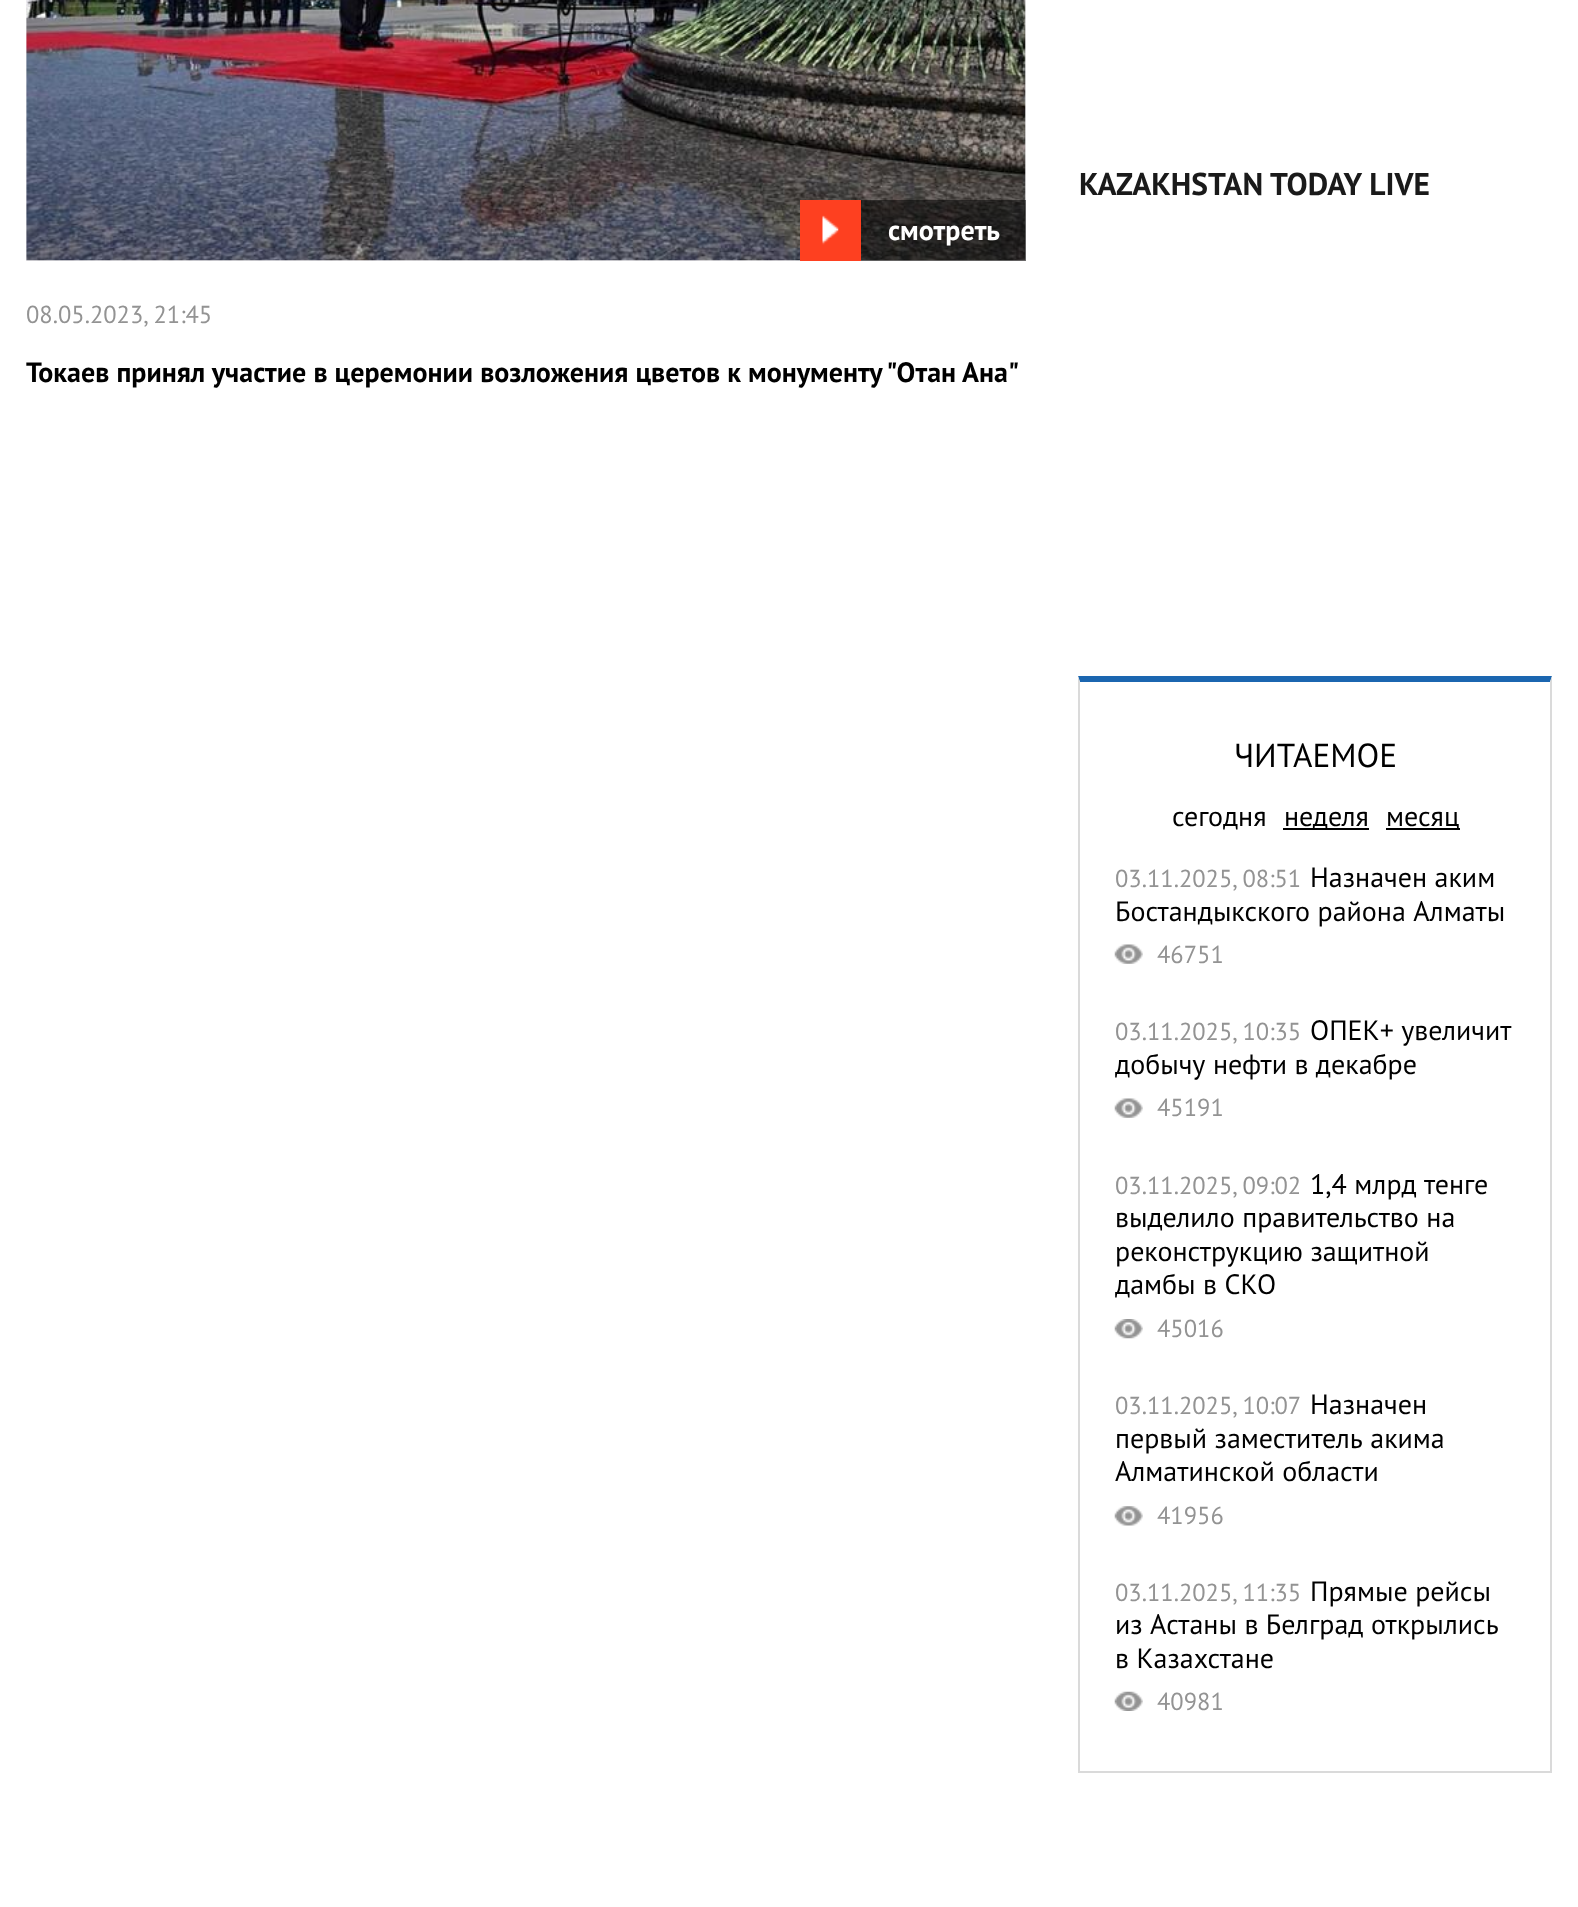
<svg xmlns="http://www.w3.org/2000/svg" width="1578" height="1907">
<style>
.a{font:bold 28px PT Sans;fill:#fff}
.b{font:24.5px PT Sans;fill:#939393}
.c{font:bold 28px PT Sans;fill:#000}
.d{font:bold 31.5px PT Sans;fill:#1a1a1a}
.e{font:33.25px PT Sans;fill:#000}
.f{font:28px PT Sans;fill:#000}
</style>
<rect width="100%" height="100%" fill="#fff"/>
<path fill="#ecebed" d="M26 0h1000v261H26z"/>
<image href="1.png" x="26" y="0" width="1000" height="261"/>
<path fill="#00000080" d="M861 200h165v61H861z"/>
<path fill="#fe4020" d="M800 200h61v61H800z"/>
<image href="2.png" x="822" y="215" width="17" height="30"/>
<path fill="#1b66b0" d="M1078 676h474l-2 6h-470z"/>
<path fill="#dadada" d="M1552 676v1097l-2-2v-1089z"/>
<path fill="#dadada" d="M1078 1771h474v2H1078z"/>
<path fill="#dadada" d="M1078 1773v-1097l2 6v1089z"/>
<path fill="#000" d="M1283 828h86v2H1283z"/>
<path fill="#000" d="M1386 828h74v2H1386z"/>
<image href="3.png" x="1114" y="944" width="29" height="20"/>
<image href="3.png" x="1114" y="1098" width="29" height="20"/>
<image href="4.png" x="1114" y="1319" width="29" height="20"/>
<image href="5.png" x="1114" y="1506" width="29" height="20"/>
<image href="6.png" x="1114" y="1691" width="29" height="20"/>
<text class="a" x="888" y="240">смотреть</text>
<text class="b" x="26" y="323">08.05.2023, 21:45</text>
<text class="c" x="26" y="382">Токаев принял участие в церемонии возложения цветов к монументу "Отан Ана"</text>
<text class="d" x="1079" y="195">KAZAKHSTAN TODAY LIVE</text>
<text class="e" x="1234" y="767">ЧИТАЕМОЕ</text>
<text class="f" x="1172" y="826">сегодня</text>
<text class="f" x="1284" y="826">неделя</text>
<text class="f" x="1386" y="826">месяц</text>
<text class="b" x="1115" y="887">03.11.2025, 08:51</text>
<text class="f" x="1310" y="887">Назначен аким</text>
<text class="f" x="1115" y="921">Бостандыкского района Алматы</text>
<text class="b" x="1157" y="963">46751</text>
<text class="b" x="1115" y="1040">03.11.2025, 10:35</text>
<text class="f" x="1310" y="1040">ОПЕК+ увеличит</text>
<text class="f" x="1115" y="1074">добычу нефти в декабре</text>
<text class="b" x="1157" y="1116">45191</text>
<text class="b" x="1115" y="1194">03.11.2025, 09:02</text>
<text class="f" x="1310" y="1194">1,4 млрд тенге</text>
<text class="f" x="1115" y="1227">выделило правительство на</text>
<text class="f" x="1115" y="1261">реконструкцию защитной</text>
<text class="f" x="1115" y="1294">дамбы в СКО</text>
<text class="b" x="1157" y="1337">45016</text>
<text class="b" x="1115" y="1414">03.11.2025, 10:07</text>
<text class="f" x="1310" y="1414">Назначен</text>
<text class="f" x="1115" y="1448">первый заместитель акима</text>
<text class="f" x="1115" y="1481">Алматинской области</text>
<text class="b" x="1157" y="1524">41956</text>
<text class="b" x="1115" y="1601">03.11.2025, 11:35</text>
<text class="f" x="1310" y="1601">Прямые рейсы</text>
<text class="f" x="1115" y="1634">из Астаны в Белград открылись</text>
<text class="f" x="1115" y="1668">в Казахстане</text>
<text class="b" x="1157" y="1710">40981</text>
</svg>
